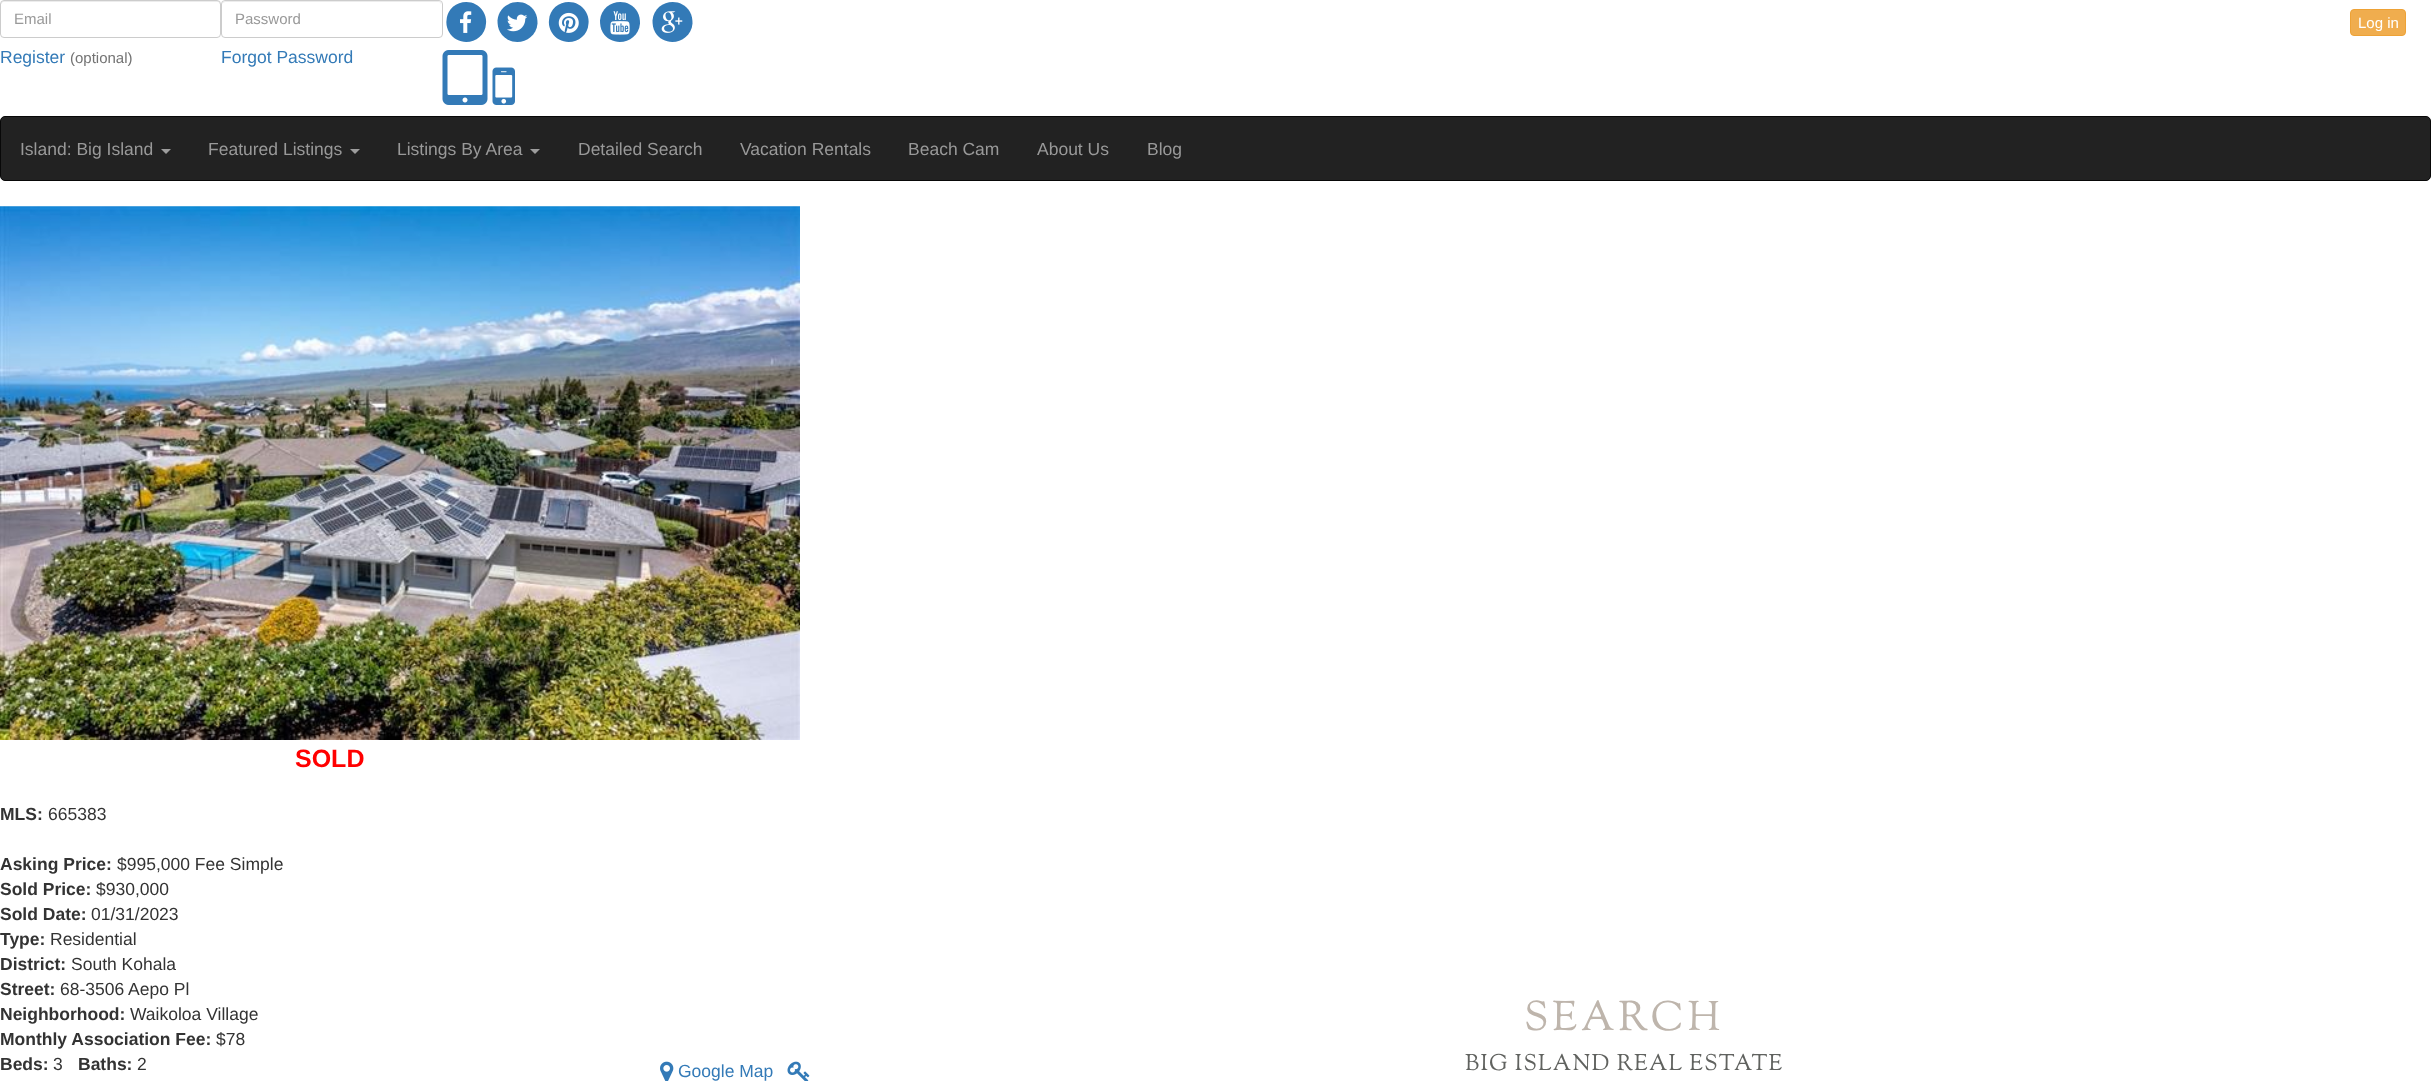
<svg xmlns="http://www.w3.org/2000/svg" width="2431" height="1081">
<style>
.a{font:15px Liberation Sans;fill:#999}
.b{font:17.5px Liberation Sans;fill:#337ab7}
.c{font:15px Liberation Sans;fill:#737373}
.d{font:15px Liberation Sans;fill:#fff}
.e{font:17.5px Liberation Sans;fill:#999}
.f{font:bold 25px Liberation Sans;fill:#f00}
.g{font:bold 17.5px Liberation Sans;fill:#333}
.h{font:17.5px Liberation Sans;fill:#333}
.i{font:41.25px Sorts Mill Goudy;letter-spacing:3.75px;fill:#beb5ac}
.j{font:22.5px Sorts Mill Goudy;letter-spacing:1.25px;fill:#60625f}
</style>
<rect width="100%" height="100%" fill="#fff"/>
<path fill="#337ab7" d="M449 32c-2-3.5-3-7.5-2.5-11.5c1-19.5 27-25.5 37-8.5c2 3.5 3 7.5 2.5 11.5c-1 19.5-27 25.5-37 8.5z"/>
<image href="1.png" x="460" y="11" width="12" height="22"/>
<path fill="#337ab7" d="M500 32c-2-3.5-2.5-7.5-2.5-11.5c1.5-19.5 27.5-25.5 37.5-8.5c2 3.5 2.5 7.5 2.5 11.5c-1.5 19.5-27.5 25.5-37.5 8.5z"/>
<image href="2.png" x="507" y="14" width="21" height="18"/>
<path fill="#337ab7" d="M551.5 32c-2-3.5-3-7.5-2.5-11.5c1-19.5 27-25.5 37-8.5c2 3.5 3 7.5 2.5 11.5c-1 19.5-27 25.5-37 8.5z"/>
<image href="3.png" x="558" y="12" width="21" height="21"/>
<path fill="#337ab7" d="M602.5 32c-2-3.5-2.5-7.5-2.5-11.5c1.5-19.5 27.5-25.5 37.5-8.5c2 3.5 2.5 7.5 2.5 11.5c-1.5 19.5-27.5 25.5-37.5 8.5z"/>
<image href="4.png" x="610" y="11" width="20" height="24"/>
<path fill="#337ab7" d="M655 32c-2-3.5-2.5-7.5-2.5-11.5c1.5-19.5 27.5-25.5 37.5-8.5c2 3.5 2.5 7.5 2.5 11.5c-1.5 19.5-27.5 25.5-37.5 8.5z"/>
<image href="5.png" x="661" y="11" width="22" height="22"/>
<path fill="#ececec" d="M4 2h214c1 0 2 2 2 3v-1c0-2-1-3-2-3h-214c-2 0-3 1-3 3v1c0-1 1-3 3-3z"/>
<rect fill="none" stroke="#ccc" x="0.5" y="0.5" width="220" height="37" rx="3.5"/>
<path fill="#ececec" d="M225 2h214c1 0 2 2 2 3v-1c0-2-1-3-3-3h-212c-2 0-3 1-3 2z"/>
<rect fill="none" stroke="#ccc" x="221.5" y="0.5" width="221" height="37" rx="3.5"/>
<rect fill="#f0ad4e" stroke="#eea236" x="2350.5" y="9.5" width="55" height="26" rx="3.5"/>
<image href="6.png" x="442" y="50" width="46" height="55"/>
<image href="7.png" x="492" y="67" width="23" height="38"/>
<rect fill="#222" stroke="#080808" x="0.5" y="116.5" width="2430" height="64" rx="4.5"/>
<path fill="#9d9d9d" d="M161 149h10l-5 5z"/>
<path fill="#9d9d9d" d="M350 149h10l-5 5z"/>
<path fill="#9d9d9d" d="M530 149h10l-5 5z"/>
<image href="8.png" x="0" y="206" width="800" height="534"/>
<image href="9.png" x="660" y="1061" width="14" height="20"/>
<image href="10.png" x="787" y="1061" width="23" height="20"/>
<text class="a" x="14" y="24">Email</text>
<text class="b" x="0" y="63">Register</text>
<text class="c" x="70" y="63">(optional)</text>
<text class="a" x="235" y="24">Password</text>
<text class="d" x="2358" y="28">Log in</text>
<text class="b" x="221" y="63">Forgot Password</text>
<text class="e" x="20" y="155">Island: Big Island</text>
<text class="e" x="208" y="155">Featured Listings</text>
<text class="e" x="397" y="155">Listings By Area</text>
<text class="e" x="578" y="155">Detailed Search</text>
<text class="e" x="740" y="155">Vacation Rentals</text>
<text class="e" x="908" y="155">Beach Cam</text>
<text class="e" x="1037" y="155">About Us</text>
<text class="e" x="1147" y="155">Blog</text>
<text class="f" x="295" y="767">SOLD</text>
<text class="g" x="0" y="820">MLS:</text>
<text class="h" x="48" y="820">665383</text>
<text class="g" x="0" y="870">Asking Price:</text>
<text class="h" x="117" y="870">$995,000 Fee Simple</text>
<text class="g" x="0" y="895">Sold Price:</text>
<text class="h" x="96" y="895">$930,000</text>
<text class="g" x="0" y="920">Sold Date:</text>
<text class="h" x="91" y="920">01/31/2023</text>
<text class="g" x="0" y="945">Type:</text>
<text class="h" x="50" y="945">Residential</text>
<text class="g" x="0" y="970">District:</text>
<text class="h" x="71" y="970">South Kohala</text>
<text class="g" x="0" y="995">Street:</text>
<text class="h" x="60" y="995">68-3506</text>
<text class="h" x="128" y="995">Aepo Pl</text>
<text class="g" x="0" y="1020">Neighborhood:</text>
<text class="h" x="130" y="1020">Waikoloa Village</text>
<text class="g" x="0" y="1045">Monthly Association Fee:</text>
<text class="h" x="216" y="1045">$78</text>
<text class="g" x="0" y="1070">Beds:</text>
<text class="h" x="53" y="1070">3</text>
<text class="g" x="78" y="1070">Baths:</text>
<text class="h" x="137" y="1070">2</text>
<text class="b" x="678" y="1077">Google Map</text>
<text class="i" x="1524" y="1030">SEARCH</text>
<text class="j" x="1465" y="1070">BIG ISLAND REAL ESTATE</text>
</svg>
